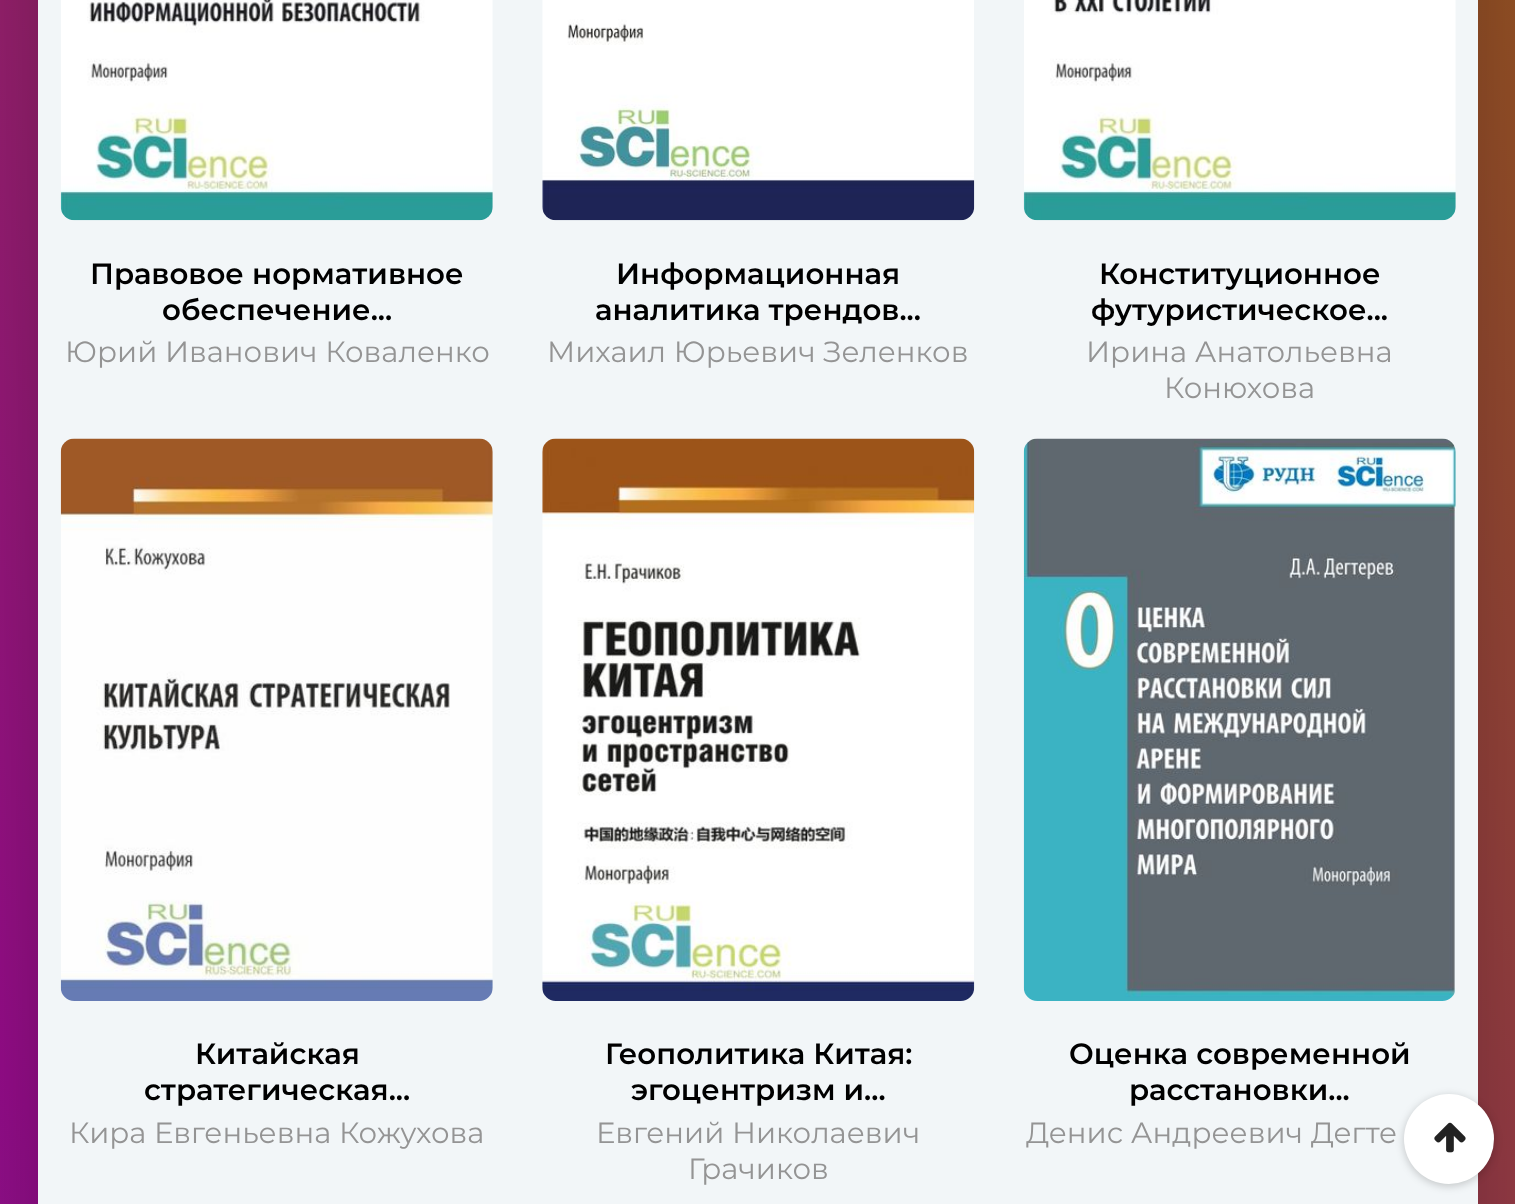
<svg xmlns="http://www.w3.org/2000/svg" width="1515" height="1204">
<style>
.a{font:600 29.25px Montserrat;fill:#000}
.b{font:29.25px Montserrat;fill:#949494}
</style>
<defs>
<linearGradient id="g1" gradientUnits="userSpaceOnUse" x1="-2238" y1="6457" x2="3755" y2="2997"><stop offset="0" stop-color="#550d9a"/><stop offset="0.33" stop-color="#0d6d9a"/><stop offset="0.67" stop-color="#9a0d8e"/><stop offset="1" stop-color="#9a650d"/></linearGradient>
</defs>
<rect width="100%" height="100%" fill="#fff"/>
<path fill="url(#g1)" d="M0 0h1515v1204H0z"/>
<path fill="#0000004d" filter="blur(67.5px)" d="M38 -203h1440v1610H38z"/>
<path fill="#f2f6f8" d="M38 0h1440v1204H38z"/>
<image href="1.png" x="60" y="0" width="433" height="221"/>
<image href="2.png" x="542" y="0" width="433" height="221"/>
<image href="3.png" x="1023" y="0" width="433" height="221"/>
<image href="4.png" x="60" y="438" width="433" height="563"/>
<image href="5.png" x="542" y="438" width="433" height="563"/>
<image href="6.png" x="1023" y="438" width="433" height="563"/>
<rect fill="#00000033" filter="blur(4.5px)" x="1404" y="1096" width="90" height="90" rx="45"/>
<circle fill="#fff" cx="1449" cy="1139" r="45"/>
<image href="7.png" x="1434" y="1122" width="32" height="31"/>
<text class="a" x="90" y="284">Правовое нормативное</text>
<text class="a" x="162" y="320">обеспечение...</text>
<text class="b" x="65" y="362">Юрий Иванович Коваленко</text>
<text class="a" x="616" y="284">Информационная</text>
<text class="a" x="595" y="320">аналитика трендов...</text>
<text class="b" x="547" y="362">Михаил Юрьевич Зеленков</text>
<text class="a" x="1099" y="284">Конституционное</text>
<text class="a" x="1091" y="320">футуристическое...</text>
<text class="b" x="1086" y="362">Ирина Анатольевна</text>
<text class="b" x="1164" y="398">Конюхова</text>
<text class="a" x="195" y="1064">Китайская</text>
<text class="a" x="144" y="1100">стратегическая...</text>
<text class="b" x="69" y="1143">Кира Евгеньевна Кожухова</text>
<text class="a" x="605" y="1064">Геополитика Китая:</text>
<text class="a" x="631" y="1100">эгоцентризм и...</text>
<text class="b" x="596" y="1143">Евгений Николаевич</text>
<text class="b" x="688" y="1179">Грачиков</text>
<text class="a" x="1069" y="1064">Оценка современной</text>
<text class="a" x="1129" y="1100">расстановки...</text>
<text class="b" x="1026" y="1143">Денис Андреевич Дегте</text>
</svg>
